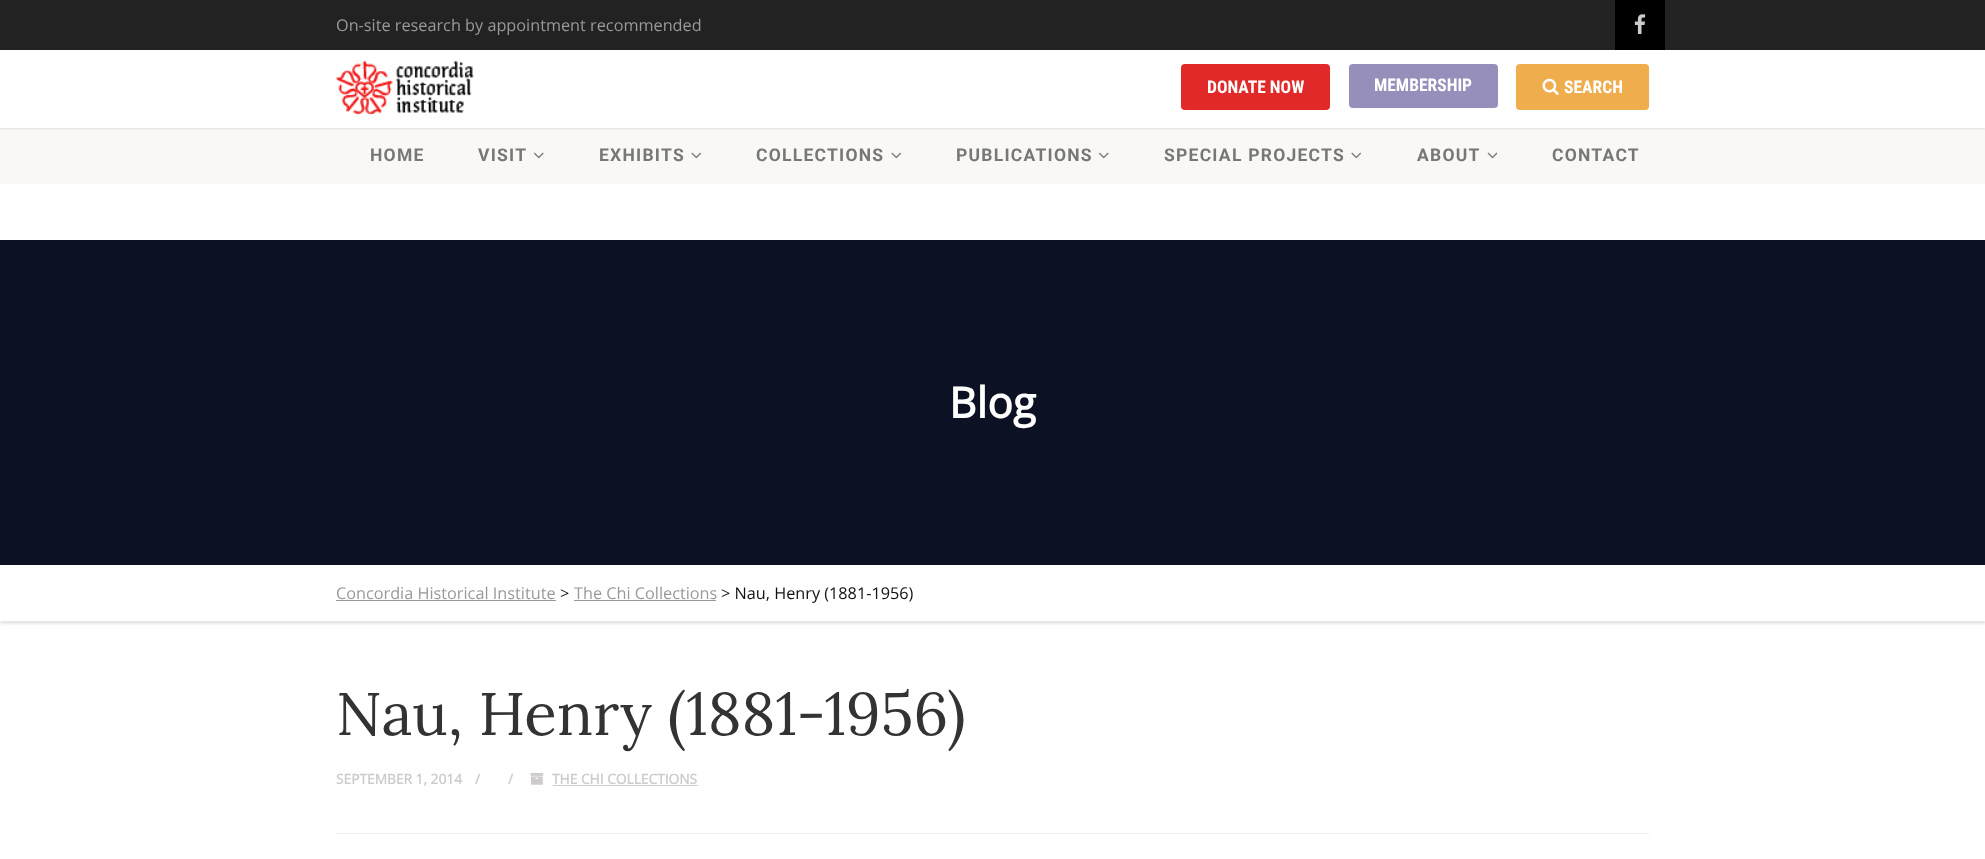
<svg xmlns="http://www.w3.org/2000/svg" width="1985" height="859">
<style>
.a{font:16.25px Open Sans;fill:#999}
.b{font:bold 17.5px Roboto Condensed;fill:#fff}
.c{font:bold 17.5px Roboto;letter-spacing:1.25px;fill:#777}
.d{font:bold 42.5px Open Sans;fill:#fff}
.e{font:16.25px Open Sans;fill:#111}
.f{font:60px Lora;fill:#333}
.g{font:bold 13.75px Open Sans;fill:#cdcbcb}
</style>
<defs>
<clipPath id="clip1"><path d="M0 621h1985v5H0z"/></clipPath>
</defs>
<rect width="100%" height="100%" fill="#fff"/>
<path fill="#222" d="M0 0h1985v50H0z"/>
<path fill="#000" d="M1615 0h50v50H1615z"/>
<image href="1.png" x="1634" y="14" width="12" height="20"/>
<path fill="#f9f8f5" d="M0 128h1985v56H0z"/>
<path fill="#0000001a" filter="blur(1px)" d="M0 51h1985v78H0z"/>
<path fill="#fff" d="M0 50h1985v78H0z"/>
<image href="2.png" x="336" y="61" width="138" height="54"/>
<rect fill="#e02928" x="1181" y="64" width="149" height="46" rx="4"/>
<rect fill="#978fbb" x="1349" y="64" width="149" height="44" rx="4"/>
<rect fill="#f0ad4e" x="1516" y="64" width="133" height="46" rx="4"/>
<image href="3.png" x="1542" y="78" width="17" height="17"/>
<image href="4.png" x="533" y="152" width="11" height="7"/>
<image href="5.png" x="691" y="152" width="11" height="7"/>
<image href="5.png" x="891" y="152" width="11" height="7"/>
<image href="4.png" x="1098" y="152" width="11" height="7"/>
<image href="5.png" x="1351" y="152" width="11" height="7"/>
<image href="6.png" x="1487" y="152" width="11" height="7"/>
<g clip-path="url(#clip1)">
<path fill="#e6e6e6" filter="blur(1px)" d="M0 568h1985v56H0z"/>
</g>
<path fill="#0c1223" d="M0 240h1985v325H0z"/>
<path fill="#999" d="M336 600h220v1H336z"/>
<path fill="#999" d="M574 600h142v1H574z"/>
<image href="7.png" x="530" y="773" width="14" height="12"/>
<path fill="#cdcbcb" d="M553 785h145v1H553z"/>
<path fill="#eee" d="M336 833h1313v1H336z"/>
<text class="a" x="336" y="31">On-site research by appointment recommended</text>
<text class="b" x="1207" y="93">DONATE NOW</text>
<text class="b" x="1374" y="91">MEMBERSHIP</text>
<text class="b" x="1564" y="93">SEARCH</text>
<text class="c" x="370" y="161">HOME</text>
<text class="c" x="478" y="161">VISIT</text>
<text class="c" x="599" y="161">EXHIBITS</text>
<text class="c" x="756" y="161">COLLECTIONS</text>
<text class="c" x="956" y="161">PUBLICATIONS</text>
<text class="c" x="1164" y="161">SPECIAL PROJECTS</text>
<text class="c" x="1417" y="161">ABOUT</text>
<text class="c" x="1552" y="161">CONTACT</text>
<text class="d" x="949" y="418">Blog</text>
<text class="a" x="336" y="599">Concordia Historical Institute</text>
<text class="e" x="560" y="599">&gt;</text>
<text class="a" x="574" y="599">The Chi Collections</text>
<text class="e" x="721" y="599">&gt; Nau, Henry (1881-1956)</text>
<text class="f" x="336" y="735">Nau, Henry (1881-1956)</text>
<text class="g" x="336" y="784">SEPTEMBER 1, 2014</text>
<text class="g" x="475" y="784">/</text>
<text class="g" x="508" y="784">/</text>
<text class="g" x="552" y="784">THE CHI COLLECTIONS</text>
</svg>
